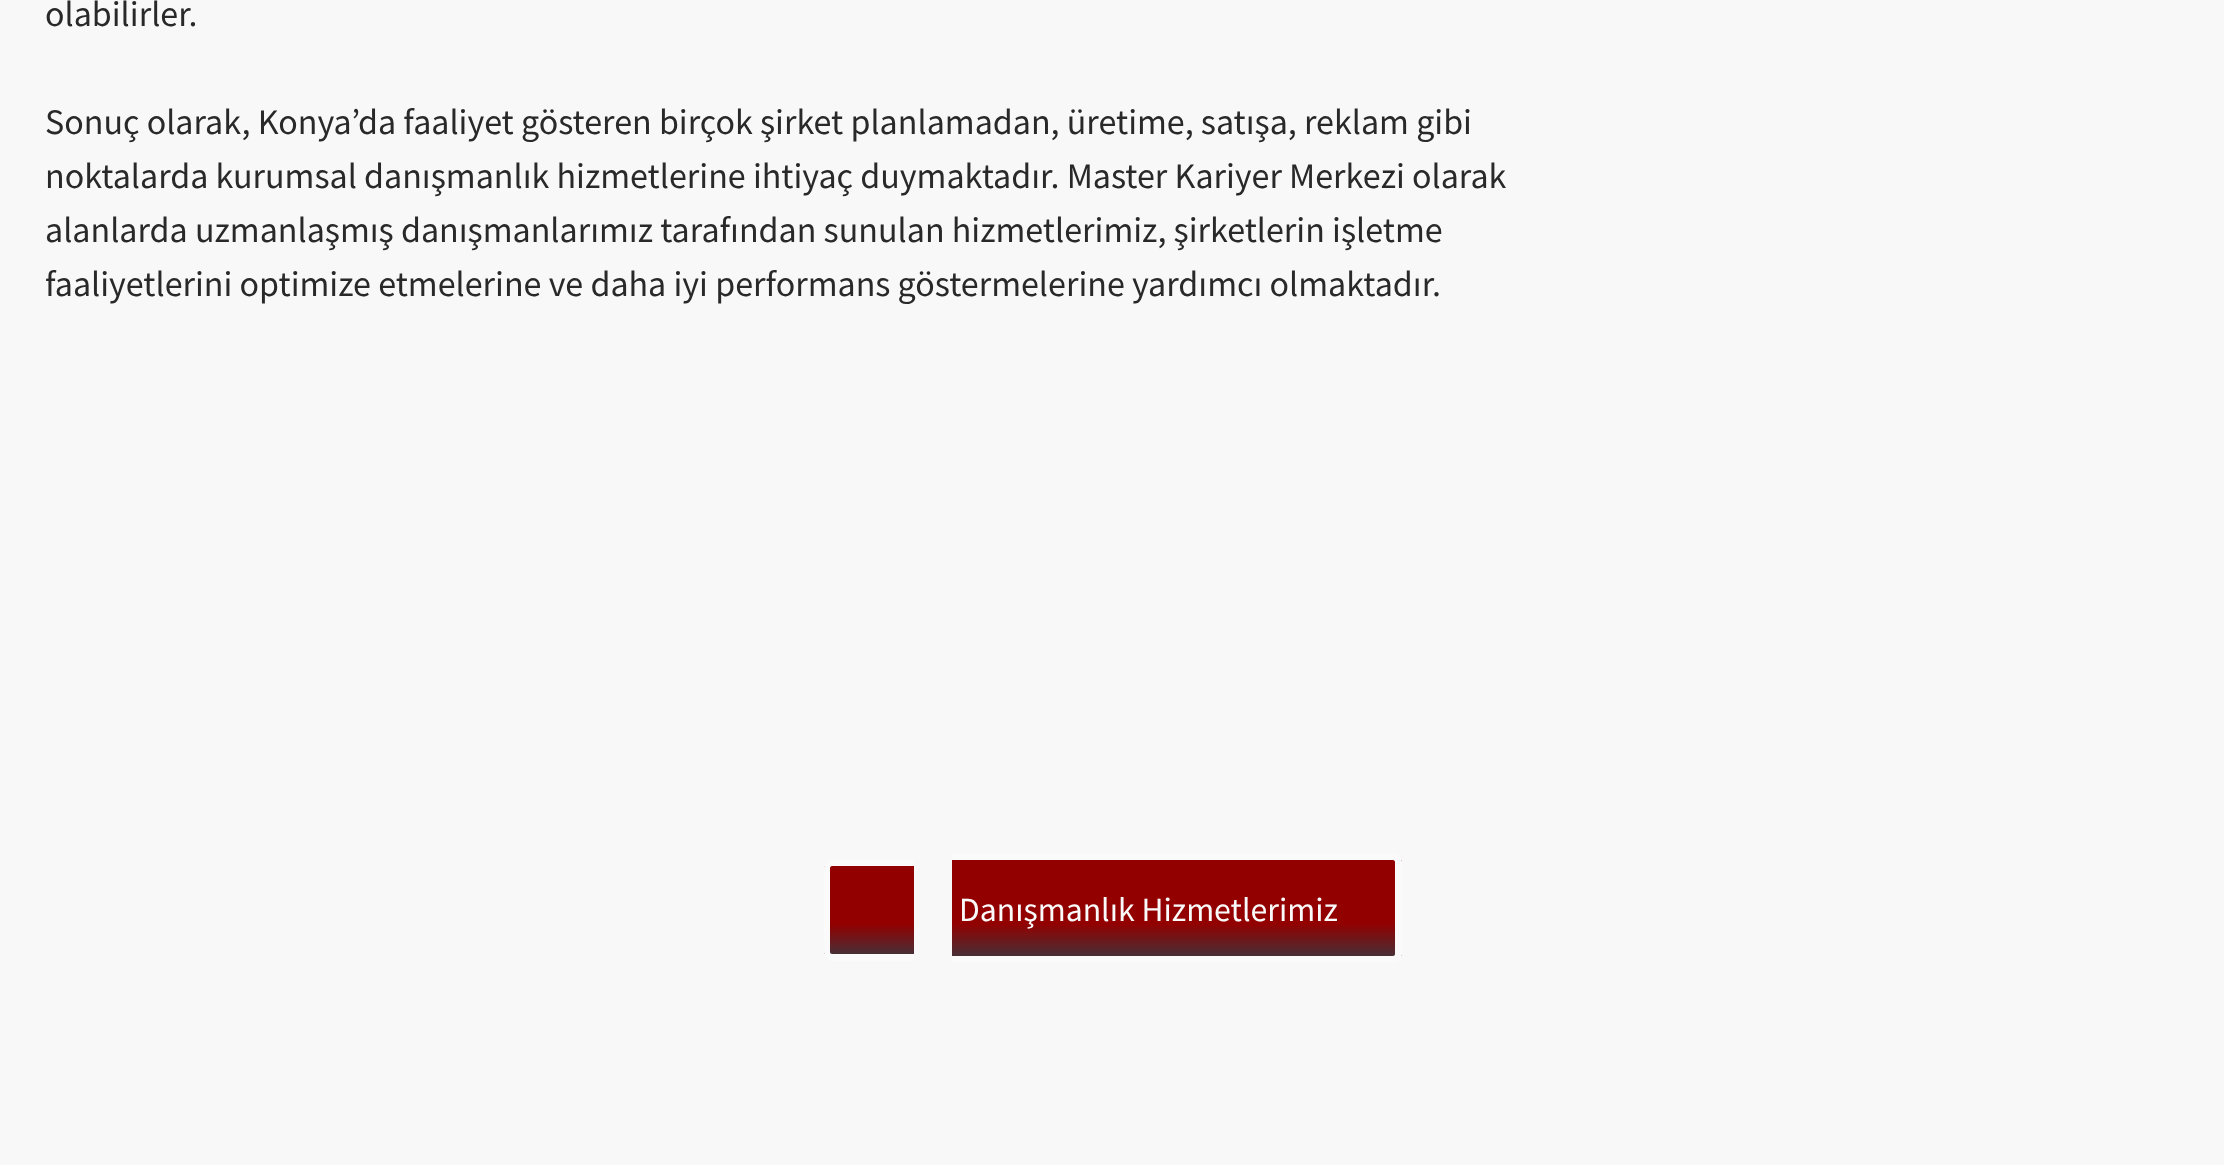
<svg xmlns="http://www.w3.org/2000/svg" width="2224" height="1165">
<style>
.a{font:36px Source Sans Pro;fill:#292929}
.b{font:33.75px Source Sans Pro;fill:#fafafa}
</style>
<defs>
<clipPath id="clip1"><path d="M833 860h81v101h-81c-5 0-9-4-9-9v-83c0-5 4-9 9-9z"/></clipPath>
<linearGradient id="g1" gradientUnits="userSpaceOnUse" x1="872" y1="866" x2="872" y2="954"><stop offset="0.66" stop-color="#930000"/><stop offset="1" stop-color="#482f35"/></linearGradient>
<linearGradient id="g2" gradientUnits="userSpaceOnUse" x1="1173" y1="860" x2="1173" y2="956"><stop offset="0.66" stop-color="#930000"/><stop offset="1" stop-color="#482f35"/></linearGradient>
</defs>
<rect width="100%" height="100%" fill="#f8f8f8"/>
<g clip-path="url(#clip1)">
<path fill="url(#g1)" d="M824 866h90v88H824z"/>
</g>
<path fill="#fafafa" fill-rule="evenodd" d="M832 860h82v101h-82c-4 0-8-4-8-9v-84c0-4 4-8 8-8zm0 6h82v88h-82c-1 0-2-1-2-2v-84c0-1 1-2 2-2z"/>
<path fill="url(#g2)" d="M952 860h450v96H952z"/>
<path fill="#fafafa" fill-rule="evenodd" d="M952 853h441c5 0 9 4 9 9v92c0 5-4 9-9 9h-441zm0 7h441c1 0 2 1 2 2v92c0 1-1 2-2 2h-441z"/>
<text class="a" x="45" y="26">olabilirler.</text>
<text class="a" x="45" y="134">Sonuç olarak, Konya’da faaliyet gösteren birçok şirket planlamadan, üretime, satışa, reklam gibi</text>
<text class="a" x="45" y="188">noktalarda kurumsal danışmanlık hizmetlerine ihtiyaç duymaktadır. Master Kariyer Merkezi olarak</text>
<text class="a" x="45" y="242">alanlarda uzmanlaşmış danışmanlarımız tarafından sunulan hizmetlerimiz, şirketlerin işletme</text>
<text class="a" x="45" y="296">faaliyetlerini optimize etmelerine ve daha iyi performans göstermelerine yardımcı olmaktadır.</text>
<text class="b" x="959" y="921">Danışmanlık Hizmetlerimiz</text>
</svg>
